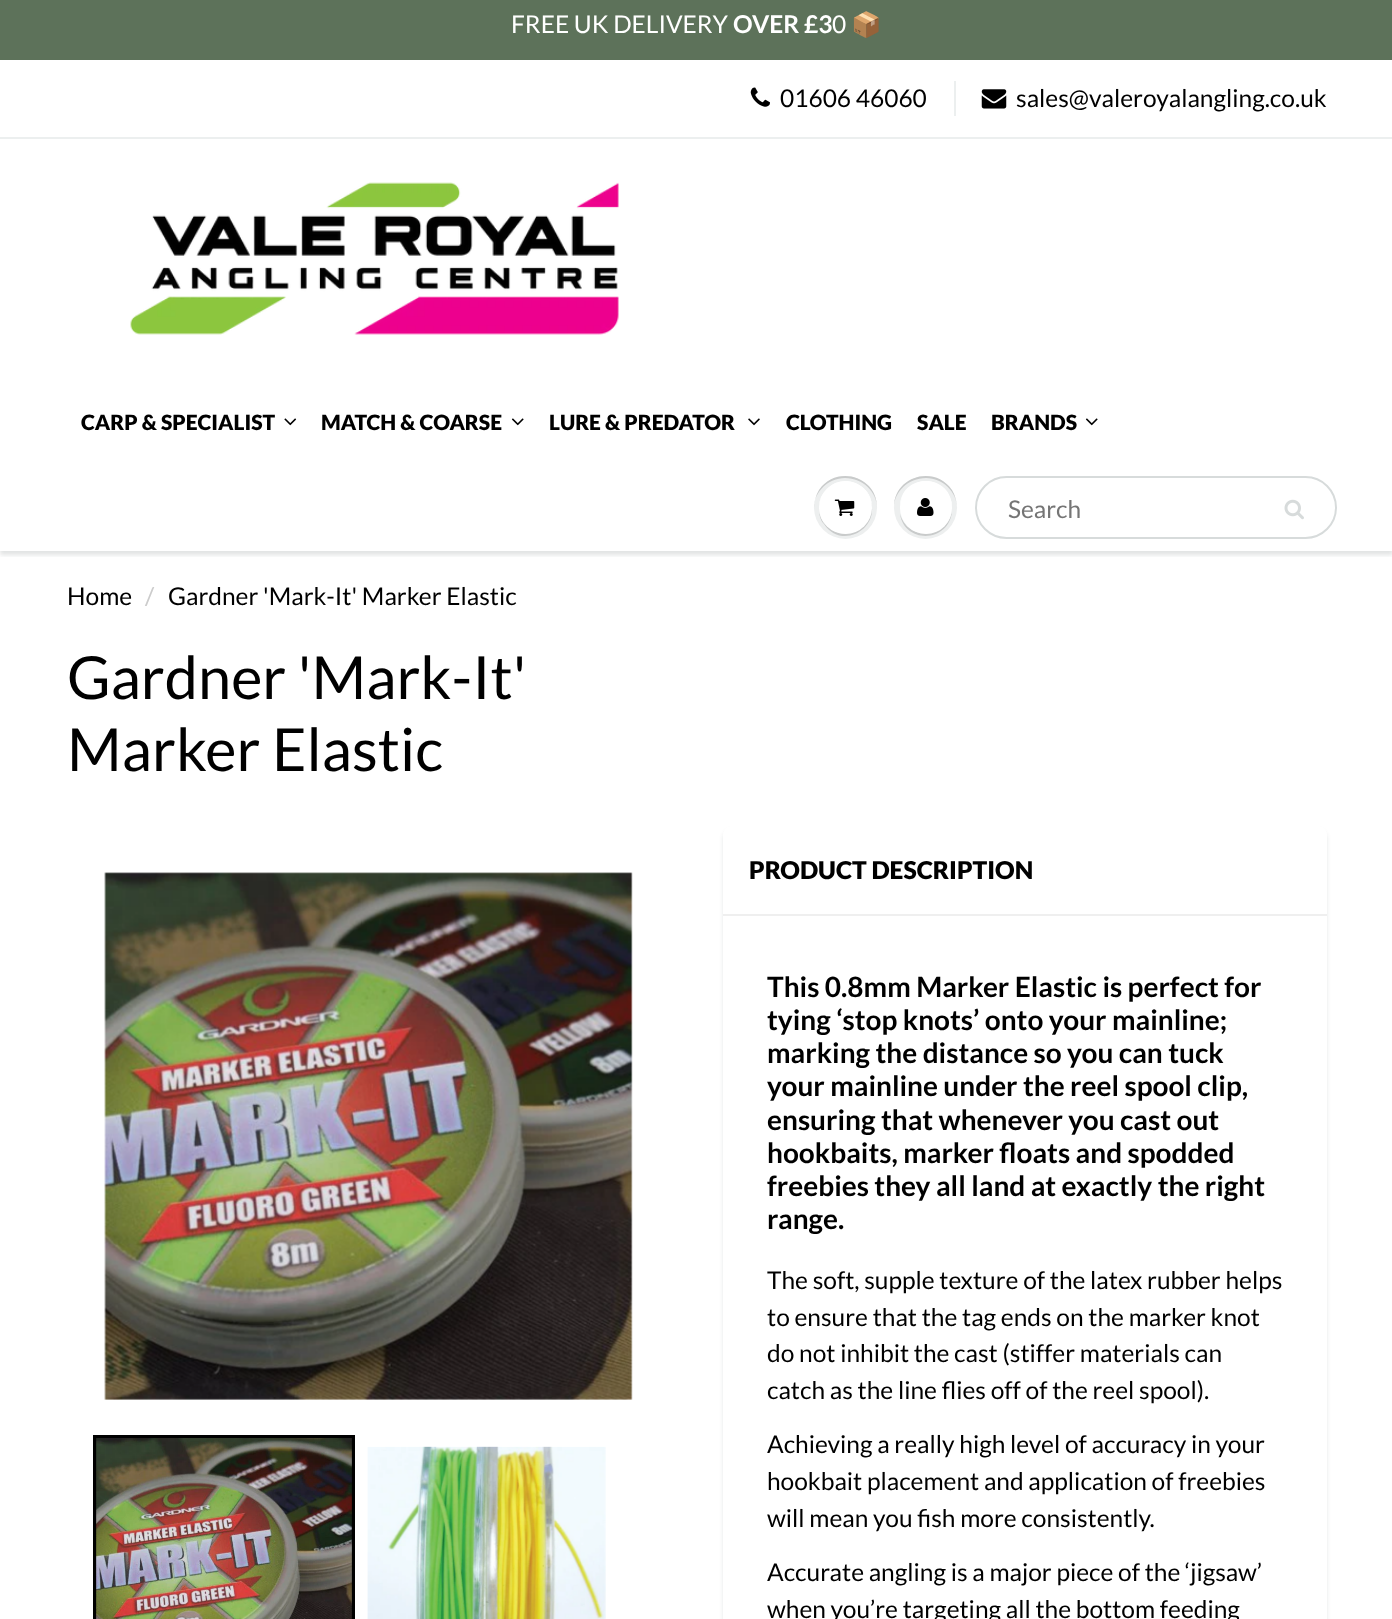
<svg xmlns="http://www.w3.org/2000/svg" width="1392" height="1619">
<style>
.a{font:24.5px Lato;fill:#fff}
.b{font:bold 24.5px Lato;fill:#fff}
.c{font:24.5px Noto Color Emoji;fill:#fff}
.d{font:24.5px Lato;fill:#000}
.e{font:900 21px Lato;fill:#000}
.f{font:24.5px Lato;fill:#757575}
.g{font:24.5px Lato;fill:#ccc}
.h{font:59.5px Lato;fill:#000}
.i{font:900 24.5px Lato;fill:#000}
.j{font:bold 28px Lato;fill:#000}
</style>
<defs>
<clipPath id="clip1"><path d="M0 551h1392v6H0z"/></clipPath>
</defs>
<rect width="100%" height="100%" fill="#fff"/>
<path fill="#5d725a" d="M0 0h1392v60H0z"/>
<image href="1.png" x="750" y="87" width="20" height="20"/>
<path fill="#ecefef" d="M954 81h2v35H954z"/>
<image href="2.png" x="981" y="89" width="26" height="20"/>
<g clip-path="url(#clip1)">
<path fill="#0b191c1f" filter="blur(2px)" d="M0 140h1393v415H0z"/>
</g>
<path fill="#ecefef" d="M0 137h1392v2H0z"/>
<image href="3.png" x="130" y="182" width="489" height="153"/>
<image href="4.png" x="284" y="418" width="13" height="8"/>
<image href="5.png" x="511" y="418" width="13" height="8"/>
<image href="6.png" x="748" y="418" width="12" height="8"/>
<image href="5.png" x="1085" y="418" width="13" height="8"/>
<circle fill="#edefef" cx="845.5" cy="507.5" r="31.5"/>
<path fill="#c9cbcb" d="M845 478c18 0 32 14 32 30c1-31-40-44-58-18c-3 5-5 12-5 18c0-16 14-30 31-30z"/>
<path fill="#c9cbcb" d="M819 508c0 6 1 12 5 16c17 26 55 6 47-22c5 25-25 42-44 24c-5-4-8-11-8-18z"/>
<circle fill="#fff" cx="845.5" cy="507.5" r="26.5"/>
<path fill="#fff" d="M845 483c15 0 27 12 27 25c1-26-34-37-48-15c-4 4-5 10-5 15c0-13 12-25 26-25z"/>
<image href="7.png" x="834" y="499" width="21" height="17"/>
<circle fill="#edefef" cx="925.5" cy="507.5" r="31.5"/>
<path fill="#c9cbcb" d="M926 478c17 0 31 14 31 30c0-6-2-13-5-18c-18-26-59-13-58 18c0-16 14-30 32-30zm26 30c-1 30-44 35-52 6c5 32 53 28 52-6z"/>
<rect fill="#fff" x="900" y="481" width="52" height="53" rx="26"/>
<path fill="#fff" d="M926 483c14 0 26 12 26 26c1-37-53-37-52-1c0-13 11-25 26-25z"/>
<image href="8.png" x="917" y="498" width="17" height="18"/>
<rect fill="none" stroke="#d7dbdb" stroke-width="2" x="976" y="477" width="360" height="61" rx="30.5"/>
<image href="9.png" x="1284" y="499" width="20" height="21"/>
<image href="10.png" x="104" y="872" width="529" height="528"/>
<path fill="none" stroke="#000" stroke-width="4" d="M95 1437h258v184H95z"/>
<image href="11.png" x="96" y="1438" width="256" height="181"/>
<image href="12.png" x="367" y="1446" width="239" height="173"/>
<rect fill="#0b191c1a" filter="blur(2px)" x="723" y="830" width="604" height="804" rx="9"/>
<rect fill="#fff" x="723" y="826" width="604" height="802" rx="9"/>
<path fill="#efefef" d="M723 914h604v2H723z"/>
<text class="a" x="511" y="33">FREE UK DELIVERY</text>
<text class="b" x="733" y="33">OVER £3</text>
<text class="a" x="832" y="33">0</text>
<text class="c" x="851" y="33">📦</text>
<text class="d" x="780" y="107">01606 46060</text>
<text class="d" x="1016" y="107">sales@valeroyalangling.co.uk</text>
<text class="e" x="81" y="430">CARP &amp; SPECIALIST</text>
<text class="e" x="321" y="430">MATCH &amp; COARSE</text>
<text class="e" x="549" y="430">LURE &amp; PREDATOR</text>
<text class="e" x="786" y="430">CLOTHING</text>
<text class="e" x="917" y="430">SALE</text>
<text class="e" x="991" y="430">BRANDS</text>
<text class="f" x="1008" y="518">Search</text>
<text class="d" x="67" y="605">Home</text>
<text class="g" x="145" y="605">/</text>
<text class="d" x="168" y="605">Gardner 'Mark-It' Marker Elastic</text>
<text class="h" x="67" y="699">Gardner 'Mark-It'</text>
<text class="h" x="67" y="771">Marker Elastic</text>
<text class="i" x="749" y="879">PRODUCT DESCRIPTION</text>
<text class="j" x="767" y="997">This 0.8mm Marker Elastic is perfect for</text>
<text class="j" x="767" y="1030">tying ‘stop knots’ onto your mainline;</text>
<text class="j" x="767" y="1063">marking the distance so you can tuck</text>
<text class="j" x="767" y="1096">your mainline under the reel spool clip,</text>
<text class="j" x="767" y="1130">ensuring that whenever you cast out</text>
<text class="j" x="767" y="1163">hookbaits, marker floats and spodded</text>
<text class="j" x="767" y="1196">freebies they all land at exactly the right</text>
<text class="j" x="767" y="1229">range.</text>
<text class="d" x="767" y="1289">The soft, supple texture of the latex rubber helps</text>
<text class="d" x="767" y="1326">to ensure that the tag ends on the marker knot</text>
<text class="d" x="767" y="1362">do not inhibit the cast (stiffer materials can</text>
<text class="d" x="767" y="1399">catch as the line flies off of the reel spool).</text>
<text class="d" x="767" y="1453">Achieving a really high level of accuracy in your</text>
<text class="d" x="767" y="1490">hookbait placement and application of freebies</text>
<text class="d" x="767" y="1527">will mean you fish more consistently.</text>
<text class="d" x="767" y="1581">Accurate angling is a major piece of the ‘jigsaw’</text>
<text class="d" x="767" y="1618">when you’re targeting all the bottom feeding</text>
</svg>
